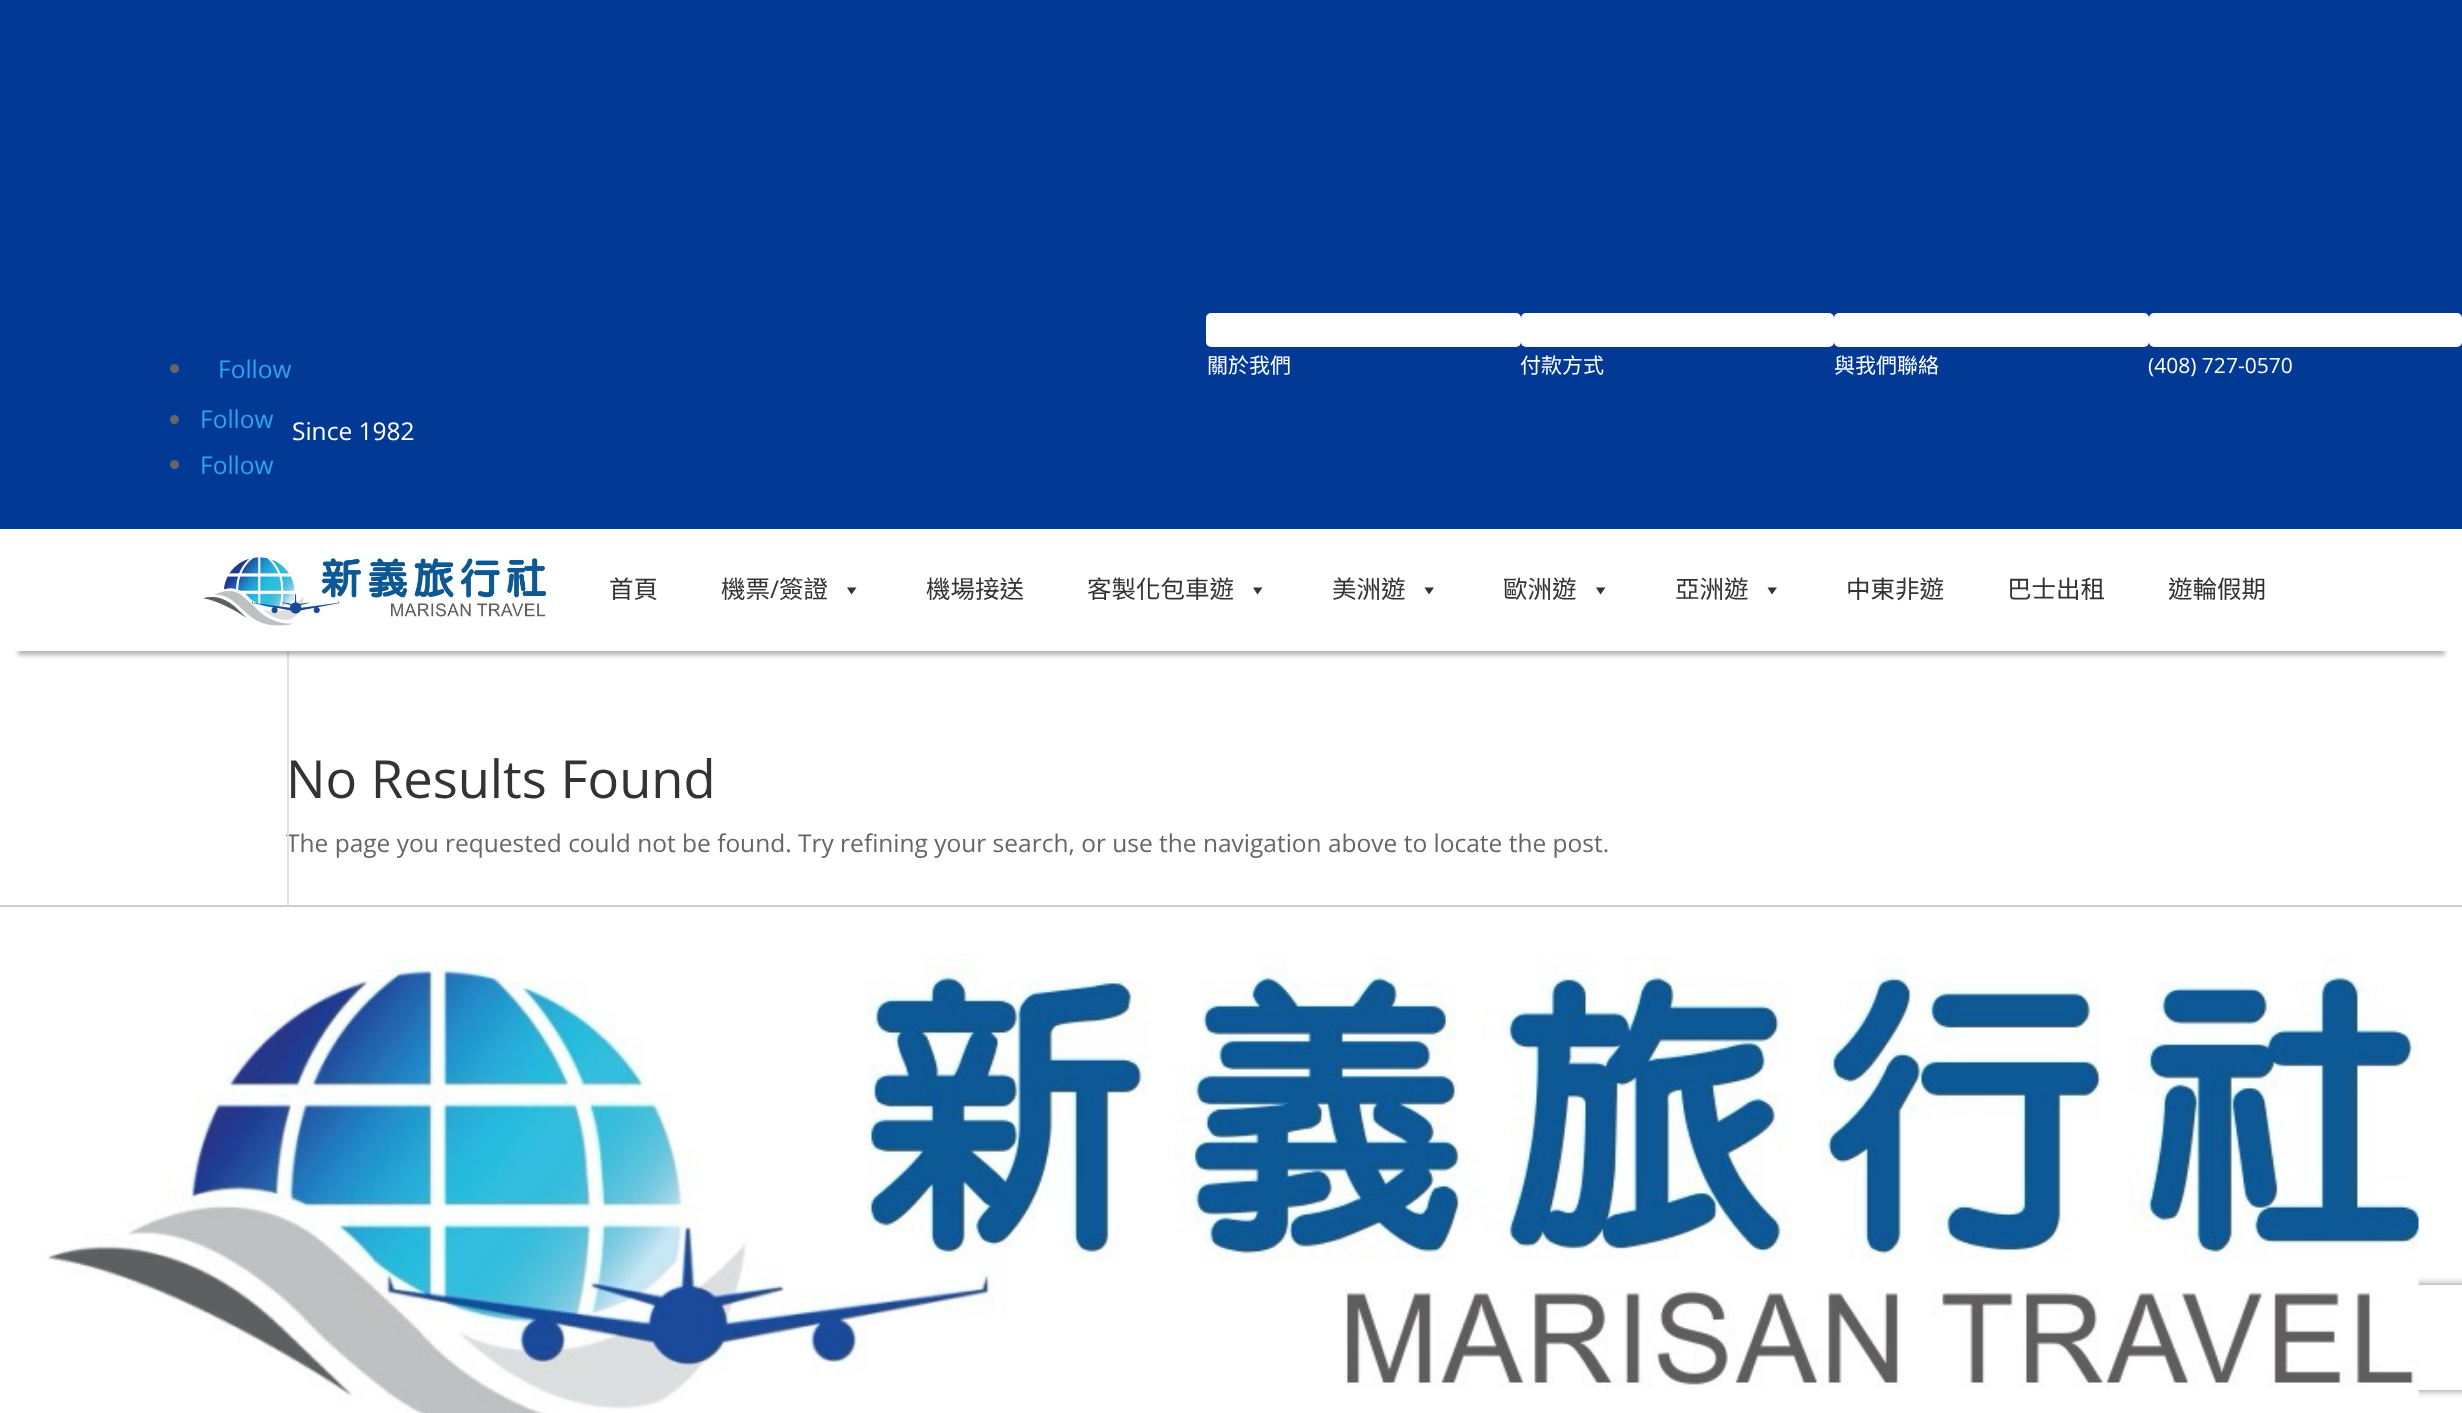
<svg xmlns="http://www.w3.org/2000/svg" width="2462" height="1413">
<style>
.a{font:24.5px Open Sans;fill:#2ea3f2}
.b{font:24.5px Open Sans;fill:#fff}
.c{font:21px Noto Sans CJK TC;fill:#fff}
.d{font:21px Open Sans;fill:#fff}
.e{font:52.5px Open Sans;fill:#333}
.f{font:24.5px Open Sans;fill:#666}
.g{font:24.5px Noto Sans CJK TC;fill:#333}
.h{font:24.5px Open Sans;fill:#333}
</style>
<defs>
<clipPath id="clip1"><path d="M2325 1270h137v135h-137zm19 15h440c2 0 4 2 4 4v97c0 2-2 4-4 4h-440c-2 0-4-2-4-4v-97c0-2 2-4 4-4z" clip-rule="evenodd"/></clipPath>
<clipPath id="clip2"><path d="M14 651h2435v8H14z"/></clipPath>
</defs>
<rect width="100%" height="100%" fill="#fff"/>
<path fill="#013994" d="M0 0h2462v529H0z"/>
<circle fill="#666" cx="174.5" cy="368.5" r="4.5"/>
<circle fill="#666" cx="174.5" cy="419.5" r="4.5"/>
<circle fill="#666" cx="174.5" cy="464.5" r="4.5"/>
<rect fill="#fff" x="1206" y="313" width="315" height="34" rx="5"/>
<rect fill="#fff" x="1521" y="313" width="313" height="34" rx="5"/>
<rect fill="#fff" x="1834" y="313" width="315" height="34" rx="5"/>
<rect fill="#fff" x="2149" y="313" width="313" height="34" rx="5"/>
<path fill="#cecece" d="M0 905h2462v2H0z"/>
<g clip-path="url(#clip1)">
<rect fill="#808080" filter="blur(4.5px)" x="2340" y="1285" width="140" height="105" rx="4"/>
</g>
<image href="2.png" x="42" y="953" width="2377" height="460"/>
<text class="a" x="218" y="378">Follow</text>
<text class="a" x="200" y="428">Follow</text>
<text class="a" x="200" y="474">Follow</text>
<text class="b" x="292" y="440">Since 1982</text>
<text class="c" x="1207" y="373">關於我們</text>
<text class="c" x="1520" y="373">付款方式</text>
<text class="c" x="1834" y="373">與我們聯絡</text>
<text class="d" x="2148" y="373">(408) 727-0570</text>
<text class="e" x="286" y="798">No Results Found</text>
<text class="f" x="286" y="852">The page you requested could not be found. Try refining your search, or use the navigation above to locate the post.</text>
<path fill="#e2e2e2" d="M287 651h2v254H287z"/>
<g clip-path="url(#clip2)">
<path fill="#0000004d" filter="blur(2.5px)" d="M18 567h2427v88H18z"/>
</g>
<text class="g" x="2168" y="598">遊輪假期</text>
<text class="g" x="2007" y="598">巴士出租</text>
<text class="g" x="1846" y="598">中東非遊</text>
<path fill="#333" d="M1777 587.5l-5 7l-4.5-7z"/>
<text class="g" x="1675" y="598">亞洲遊</text>
<path fill="#333" d="M1605.5 587.5l-5 7l-4.5-7z"/>
<text class="g" x="1503" y="598">歐洲遊</text>
<path fill="#333" d="M1434 587.5l-5 7l-4.5-7z"/>
<text class="g" x="1332" y="598">美洲遊</text>
<path fill="#333" d="M1262.5 587.5l-5 7l-4.5-7z"/>
<text class="g" x="1087" y="598">客製化包車遊</text>
<text class="g" x="926" y="598">機場接送</text>
<path fill="#333" d="M856.5 587.5l-5 7l-4.5-7z"/>
<text class="g" x="779" y="598">簽證</text>
<text class="h" x="770" y="598">/</text>
<text class="g" x="721" y="598">機票</text>
<text class="g" x="609" y="598">首頁</text>
<image href="1.png" x="203" y="555" width="343" height="71"/>
</svg>
